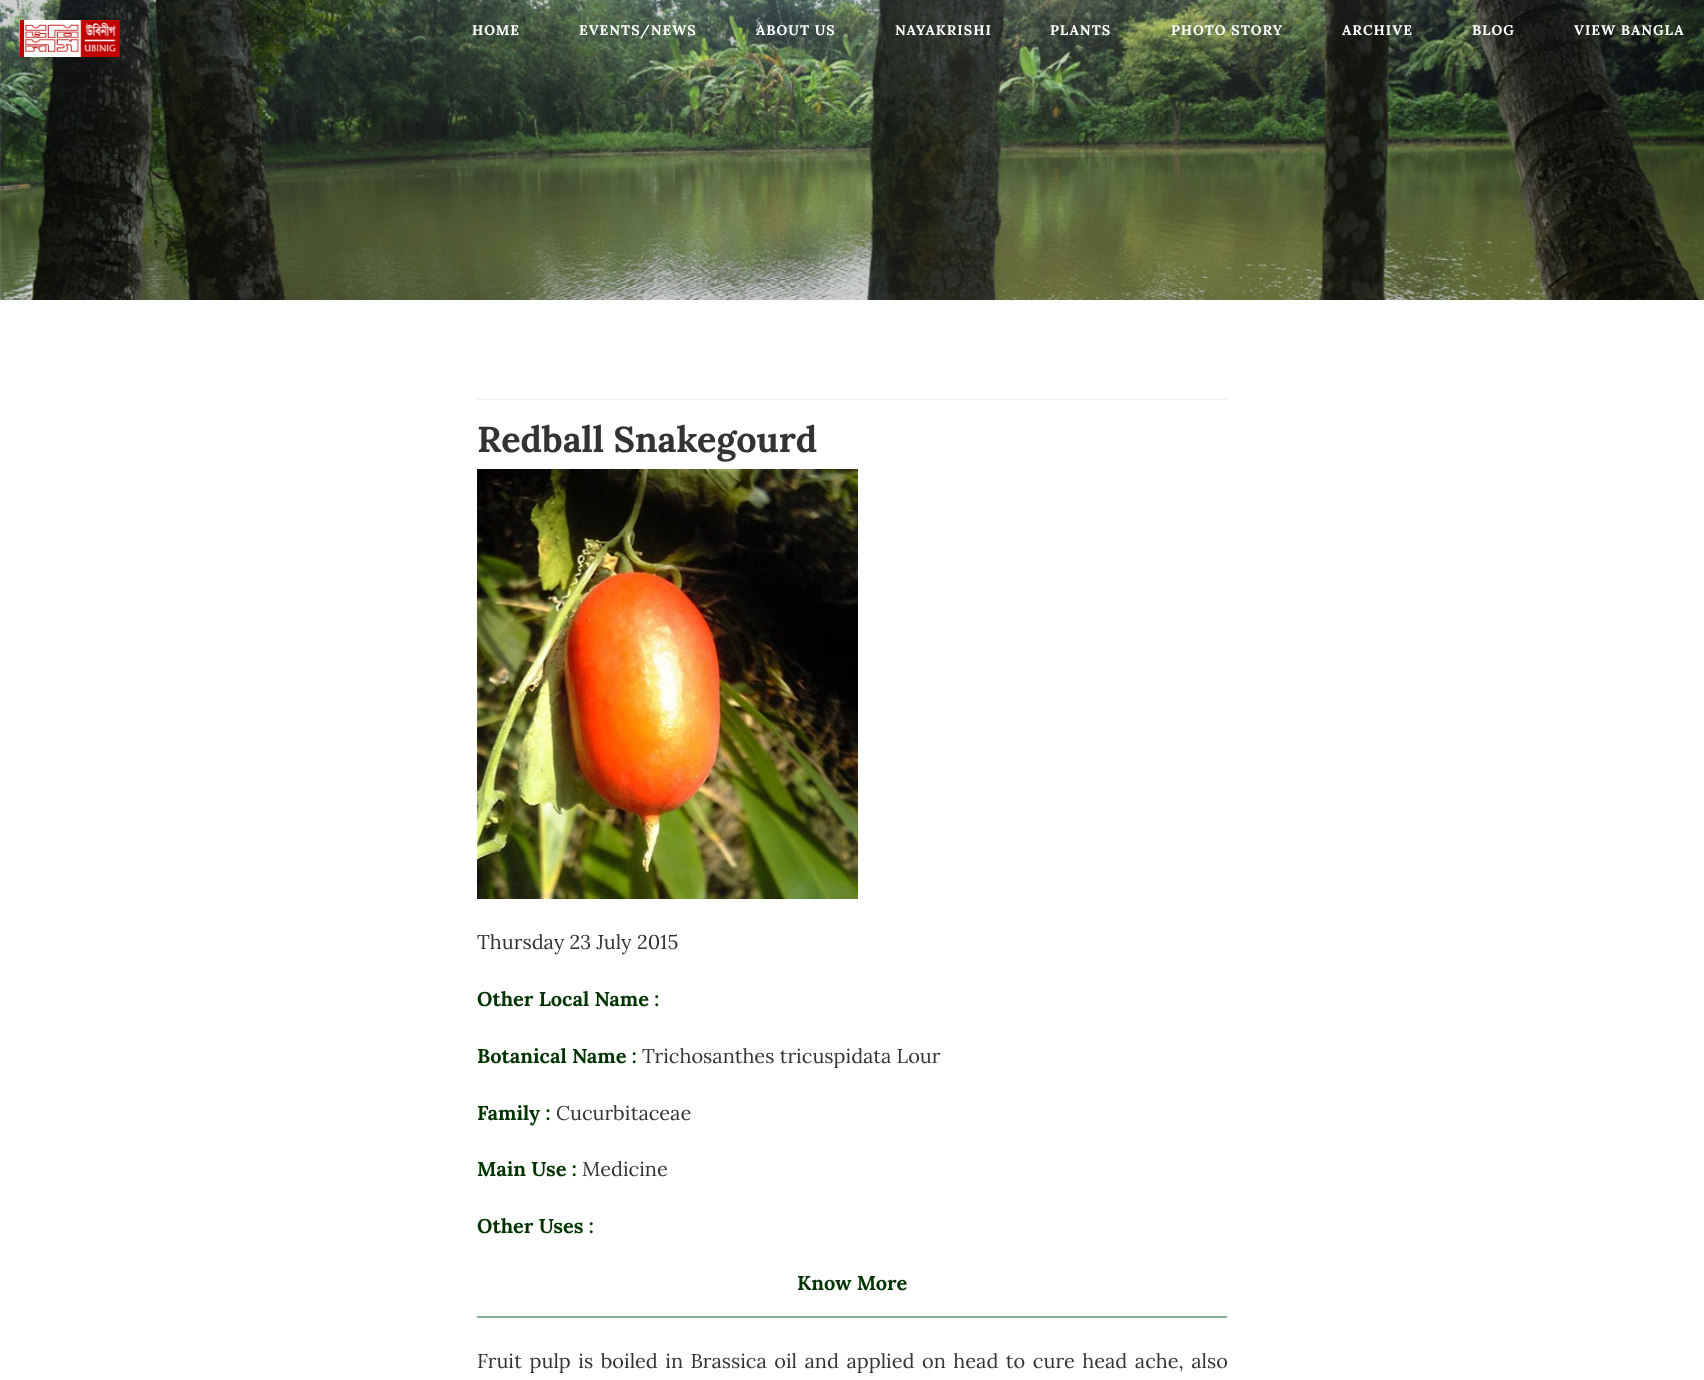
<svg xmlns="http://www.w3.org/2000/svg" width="1704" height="1380">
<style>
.a{font:bold 14px Lora;letter-spacing:1px;fill:#fff}
.b{font:bold 36px Lora;fill:#333}
.c{font:20px Lora;fill:#333}
.d{font:bold 20px Lora;fill:#030}
</style>
<rect width="100%" height="100%" fill="#fff"/>
<image href="1.png" x="0" y="0" width="1704" height="300"/>
<image href="2.png" x="20" y="20" width="100" height="37"/>
<path fill="#eee" d="M477 399h750v1H477z"/>
<image href="3.png" x="477" y="469" width="381" height="430"/>
<path fill="#85af97" d="M477 1316h750v2H477z"/>
<text class="a" x="472" y="35">HOME</text>
<text class="a" x="579" y="35">EVENTS/NEWS</text>
<text class="a" x="756" y="35">ABOUT US</text>
<text class="a" x="895" y="35">NAYAKRISHI</text>
<text class="a" x="1050" y="35">PLANTS</text>
<text class="a" x="1171" y="35">PHOTO STORY</text>
<text class="a" x="1342" y="35">ARCHIVE</text>
<text class="a" x="1472" y="35">BLOG</text>
<text class="a" x="1574" y="35">VIEW BANGLA</text>
<text class="b" x="477" y="452">Redball Snakegourd</text>
<text class="c" x="477" y="949">Thursday 23 July 2015</text>
<text class="d" x="477" y="1006">Other Local Name :</text>
<text class="d" x="477" y="1063">Botanical Name :</text>
<text class="c" x="642" y="1063">Trichosanthes tricuspidata Lour</text>
<text class="d" x="477" y="1120">Family :</text>
<text class="c" x="556" y="1120">Cucurbitaceae</text>
<text class="d" x="477" y="1176">Main Use :</text>
<text class="c" x="582" y="1176">Medicine</text>
<text class="d" x="477" y="1233">Other Uses :</text>
<text class="d" x="797" y="1290">Know More</text>
<text class="c" x="477" y="1368" word-spacing="2.25">Fruit pulp is boiled in Brassica oil and applied on head to cure head ache, also</text>
</svg>
